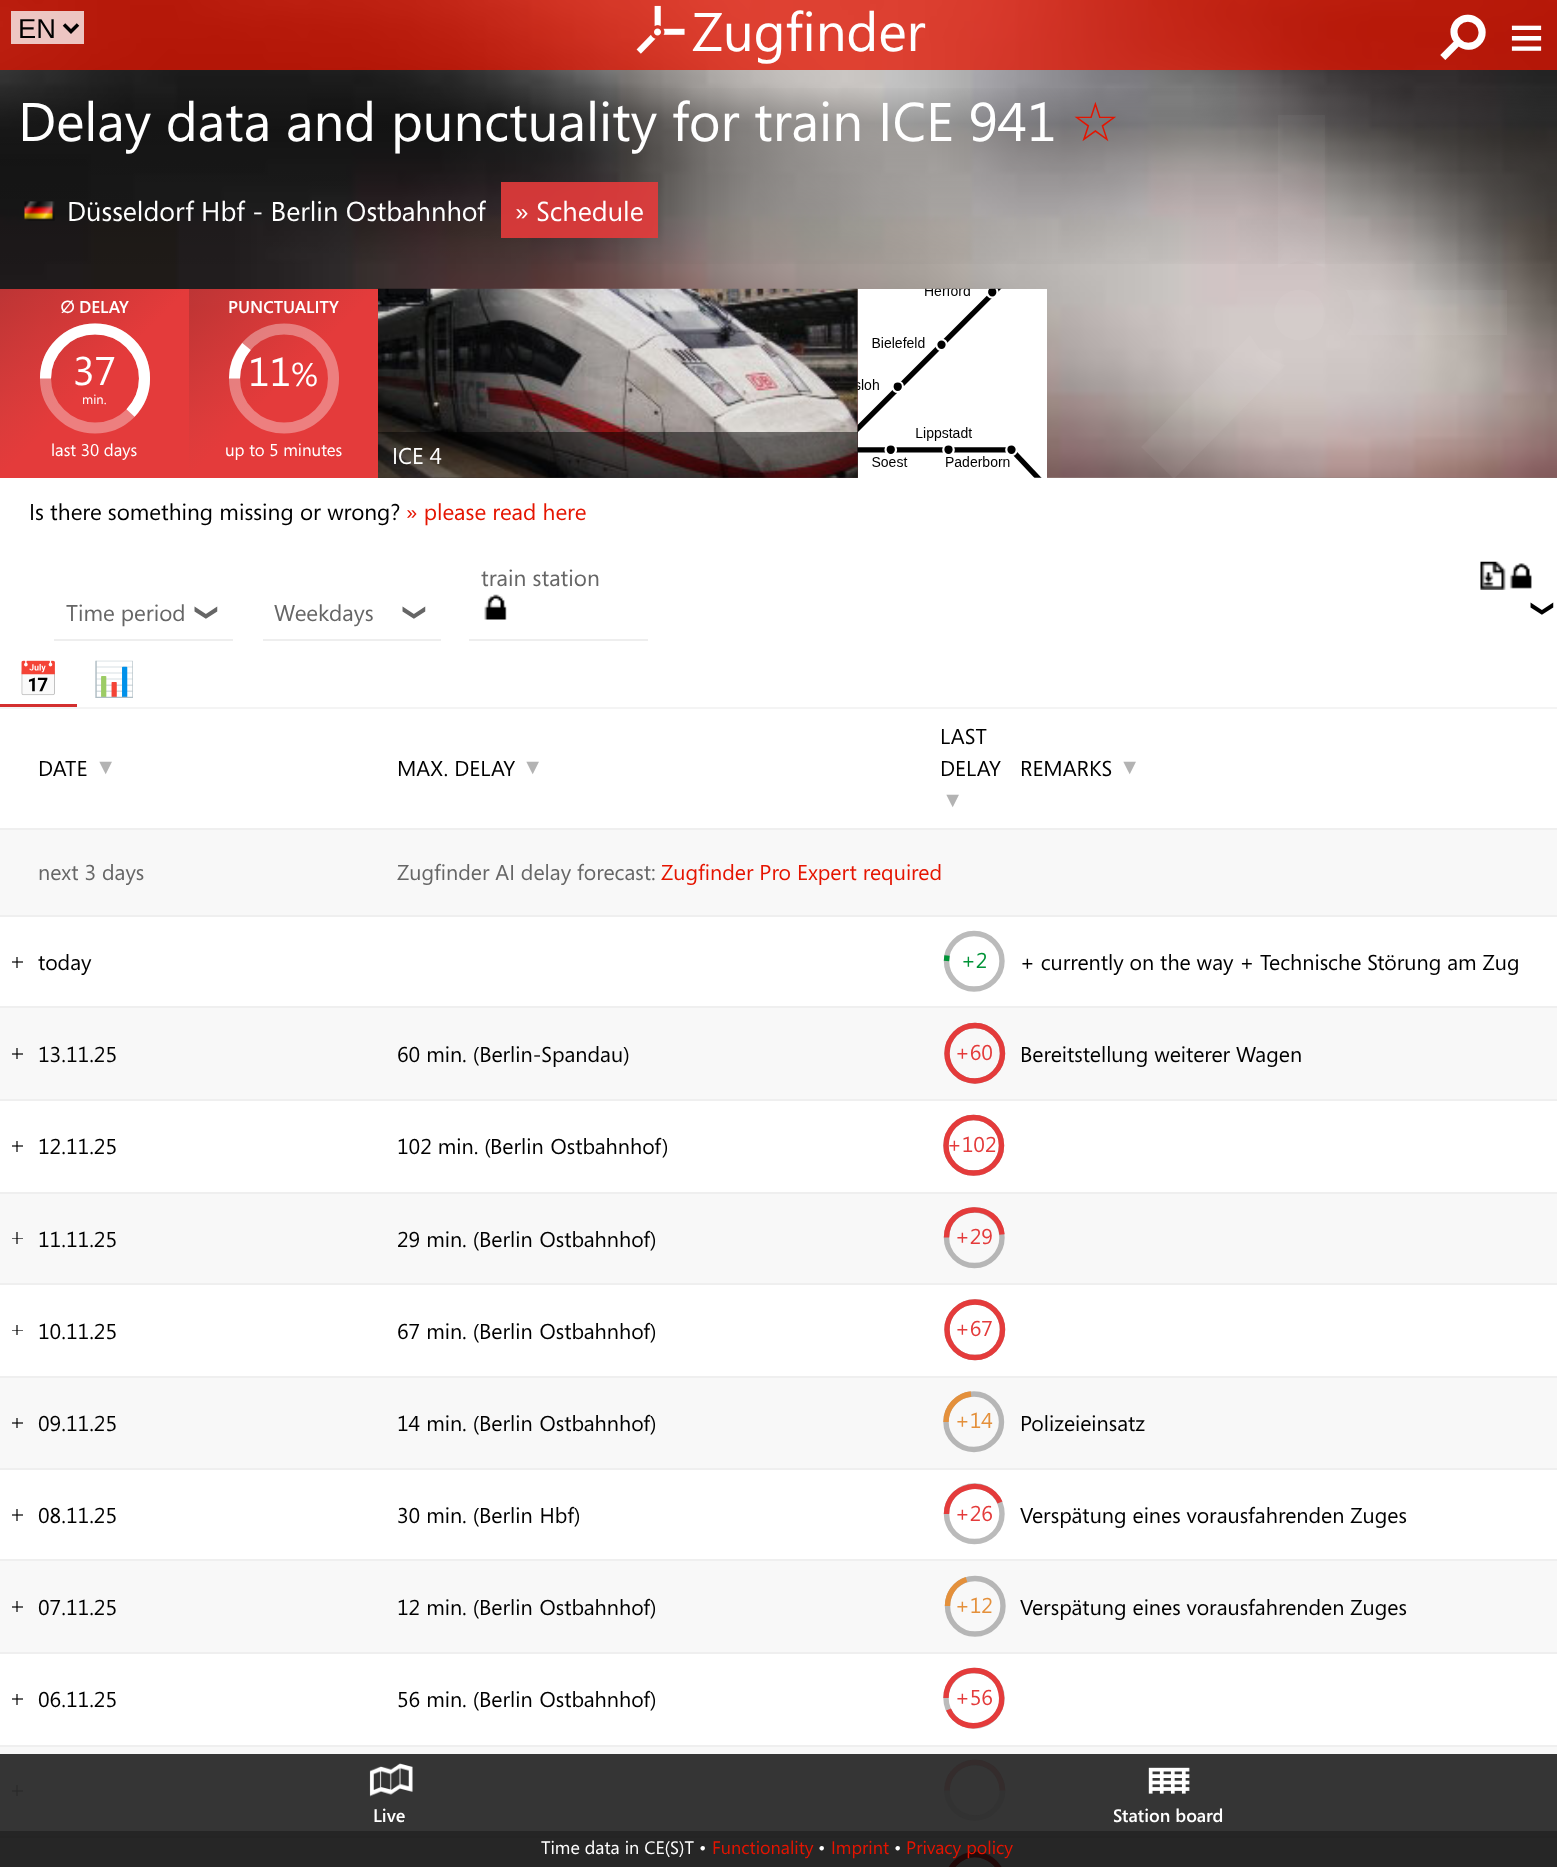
<svg xmlns="http://www.w3.org/2000/svg" width="1557" height="1867">
<style>
.a{font:27.25px Liberation Sans;fill:#000}
.b{font:54.4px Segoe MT;fill:#fff}
.c{font:bold 60px DejaVu Sans;fill:#fff}
.d{font:bold 60px Liberation Sans;fill:#fff}
.e{font:54.4px DejaVu Sans;fill:#e51400}
.f{font:27.25px Segoe MT;fill:#fff}
.g{font:bold 17px DejaVu Sans;fill:#fff}
.h{font:600 17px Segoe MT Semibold;fill:#fff}
.i{font:40px Segoe MT;fill:#fff}
.j{font:13px Segoe MT;fill:#fff}
.k{font:17px Segoe MT;fill:#fff}
.l{font:33px Segoe MT;fill:#fff}
.m{font:22.7px Segoe MT;fill:#fff}
.n{font:22.7px Segoe MT;fill:#000}
.o{font:22.7px Segoe MT;fill:#e51400}
.p{font:22.7px Segoe MT;fill:#666}
.q{font:22.7px DejaVu Sans;fill:#666}
.r{font:22.7px DejaVu Sans;fill:#000}
.s{font:34px Noto Color Emoji;fill:#e51400}
.t{font:21.55px Segoe MT;fill:#000}
.u{font:21.55px Liberation Sans;letter-spacing:4px;fill:#b3b3b3}
.v{font:21.55px Segoe MT;fill:#666}
.w{font:21.55px Segoe MT;fill:#e51400}
.x{font:21.55px Segoe MT;fill:#009337}
.y{font:21.55px Segoe MT;fill:#e43b3b}
.z{font:21.55px Segoe MT;fill:#e4903b}
.a1{font:600 18.1px Segoe MT Semibold;fill:#fff}
.b1{font:18.1px Segoe MT;fill:#fff}
.c1{font:18.1px Segoe MT;fill:#e51400}
</style>
<defs>
<linearGradient id="g1" gradientUnits="userSpaceOnUse" x1="779" y1="84" x2="779" y2="478"><stop offset="0" stop-color="#000" stop-opacity="0"/><stop offset="0.1" stop-color="#000" stop-opacity="0.2"/><stop offset="0.5" stop-color="#000" stop-opacity="0"/></linearGradient>
<linearGradient id="g2" gradientUnits="userSpaceOnUse" x1="0" y1="289" x2="189" y2="478"><stop offset="0" stop-color="#e43b3b" stop-opacity="0.8"/><stop offset="0.5" stop-color="#e43b3b"/></linearGradient>
<linearGradient id="g3" gradientUnits="userSpaceOnUse" x1="189" y1="289" x2="378" y2="478"><stop offset="0" stop-color="#e43b3b" stop-opacity="0.8"/><stop offset="0.5" stop-color="#e43b3b"/></linearGradient>
</defs>
<rect width="100%" height="100%" fill="#fff"/>
<path fill="#262626" d="M0 1838h1557v29H0z"/>
<path fill="#666" d="M12 1698h11v2H12z"/>
<path fill="#666" d="M12 1514h11v2H12z"/>
<path fill="#666" d="M12 1330h11v1H12z"/>
<path fill="#666" d="M12 1145h11v2H12z"/>
<path fill="#666" d="M12 961h11v2H12z"/>
<image href="6.png" x="378" y="477" width="1179" height="1"/>
<image href="2.png" x="0" y="0" width="1557" height="478"/>
<path fill="#e51400bf" d="M0 0h1557v70H0z"/>
<path fill="#ffffffbf" d="M11 11h73v33H11z"/>
<path fill="none" stroke="#000" stroke-width="3.5" d="M64 24.5l7 7l7-7"/>
<image href="1.png" x="636" y="5" width="49" height="49"/>
<path fill="#ffffff0d" d="M1325 268v-153h-47v153l14-5c12-4 22 1 33 5z"/>
<path fill="url(#g1)" d="M0 88h1557v176H0z"/>
<image href="3.png" x="24" y="201" width="31" height="20"/>
<path fill="#e43b3be6" d="M501 182h157v56H501z"/>
<path fill="url(#g2)" d="M0 289h189v189H0z"/>
<path fill="none" stroke="#ffffff59" stroke-width="11.1" d="M45.5 378.5c0-27.5 22.5-49.5 49.5-49.5c27.5 0 49.5 22 49.5 49.5c0 27.5-22 49.5-49.5 49.5c-27 0-49.5-22-49.5-49.5z"/>
<path fill="none" stroke="#fff" stroke-width="11.1" d="M45.5 378.5c0-27.5 22.5-49.5 49.5-49.5c27.5 0 49.5 22 49.5 49.5c0 13.5-5.5 25.5-14 34.5"/>
<path fill="url(#g3)" d="M189 289h189v189H189z"/>
<path fill="none" stroke="#ffffff59" stroke-width="11.1" d="M234.5 378.5c0-27.5 22.5-49.5 49.5-49.5c27.5 0 49.5 22 49.5 49.5c0 27.5-22 49.5-49.5 49.5c-27 0-49.5-22-49.5-49.5z"/>
<path fill="none" stroke="#fff" stroke-width="11.1" d="M234.5 378.5c0-12 4.5-23 12-32"/>
<image href="4.png" x="378" y="288" width="480" height="190"/>
<path fill="#00000080" d="M378 432h480v46H378z"/>
<path fill="#fff" d="M858 289h189v189H858z"/>
<image href="5.png" x="857" y="288" width="185" height="190"/>
<path fill="#ffffff0d" d="M1250 335l-109 112l33 32l112-114c-11-2-22-9-28-18z"/>
<circle fill="#ffffff0d" cx="1299.5" cy="315" r="25.5"/>
<path fill="#ffffff0d" d="M1507 290h-161l6 13c3 10 2 24-6 32h161z"/>
<image href="7.png" x="1480" y="561" width="26" height="29"/>
<image href="8.png" x="1509" y="563" width="23" height="26"/>
<path fill="#eee" d="M54 639h179v2H54z"/>
<path fill="#eee" d="M263 639h178v2H263z"/>
<path fill="#eee" d="M469 639h179v2H469z"/>
<image href="9.png" x="484" y="594" width="23" height="26"/>
<path fill="#d32f2f" d="M0 704h77v3H0z"/>
<path fill="#f4f4f4" d="M0 707h1557v2H0z"/>
<path fill="#efefef" d="M0 828h1557v2H0z"/>
<path fill="#f8f8f8" d="M0 830h1557v85H0z"/>
<path fill="#efefef" d="M0 915h1557v2H0z"/>
<path fill="#666" d="M16 957h2v11H16z"/>
<path fill="#292929" d="M16 961h2v2H16z"/>
<path fill="none" stroke="#bbb" stroke-width="5.4" d="M946.5 961c0-15 12.5-27.5 27.5-27.5c15.5 0 28 12.5 28 27.5c0 15.5-12.5 28-28 28c-15 0-27.5-12.5-27.5-28z"/>
<path fill="none" stroke="#009337" stroke-width="5.4" d="M946.5 961l.5-5.5"/>
<path fill="#efefef" d="M0 1006h1557v2H0z"/>
<path fill="#f8f8f8" d="M0 1008h1557v91H0z"/>
<path fill="#636363" d="M12 1053h11v2H12z"/>
<path fill="#636363" d="M16 1048h2v11H16z"/>
<path fill="#282828" d="M16 1053h2v2H16z"/>
<path fill="none" stroke="#b6b6b6" stroke-width="5.4" d="M947 1053.5c0-15.5 12.5-28 28-28c15 0 27.5 12.5 27.5 28c0 15-12.5 27.5-27.5 27.5c-15.5 0-28-12.5-28-27.5z"/>
<path fill="none" stroke="#e43b3b" stroke-width="5.4" d="M947 1053.5c0-15.5 12.5-28 28-28c15 0 27.5 12.5 27.5 28c0 15-12.5 27.5-27.5 27.5c-15.5 0-28-12.5-28-27.5"/>
<path fill="#efefef" d="M0 1099h1557v2H0z"/>
<path fill="#666" d="M16 1141h2v11H16z"/>
<path fill="#292929" d="M16 1145h2v2H16z"/>
<path fill="none" stroke="#bbb" stroke-width="5.4" d="M946 1145.5c0-15.5 12.5-28 27.5-28c15.5 0 28 12.5 28 28c0 15.5-12.5 27.5-28 27.5c-15 0-27.5-12-27.5-27.5z"/>
<path fill="none" stroke="#e43b3b" stroke-width="5.4" d="M946 1145.5c0-15.5 12.5-28 27.5-28c15.5 0 28 12.5 28 28c0 15.5-12.5 27.5-28 27.5c-15 0-27.5-12-27.5-27.5"/>
<path fill="#efefef" d="M0 1192h1557v2H0z"/>
<path fill="#f8f8f8" d="M0 1194h1557v89H0z"/>
<path fill="#636363" d="M12 1238h11v1H12z"/>
<path fill="#636363" d="M16 1232h2v12H16z"/>
<path fill="#282828" d="M16 1238h2v1H16z"/>
<path fill="none" stroke="#b6b6b6" stroke-width="5.4" d="M946.5 1237.5c0-15.5 12.5-27.5 28-27.5c15 0 27.5 12 27.5 27.5c0 15.5-12.5 28-27.5 28c-15.5 0-28-12.5-28-28z"/>
<path fill="none" stroke="#e43b3b" stroke-width="5.4" d="M946.5 1237.5c0-35 52-37.5 55.5-3"/>
<path fill="#efefef" d="M0 1283h1557v2H0z"/>
<path fill="#666" d="M16 1325h2v10H16z"/>
<path fill="#292929" d="M16 1330h2v1H16z"/>
<path fill="none" stroke="#bbb" stroke-width="5.4" d="M947 1329.5c0-15 12.5-27.5 28-27.5c15.5 0 27.5 12.5 27.5 27.5c0 15.5-12 28-27.5 28c-15.5 0-28-12.5-28-28z"/>
<path fill="none" stroke="#e43b3b" stroke-width="5.4" d="M947 1329.5c0-15 12.5-27.5 28-27.5c15.5 0 27.5 12.5 27.5 27.5c0 15.5-12 28-27.5 28c-15.5 0-28-12.5-28-28"/>
<path fill="#efefef" d="M0 1376h1557v2H0z"/>
<path fill="#f8f8f8" d="M0 1378h1557v90H0z"/>
<path fill="#636363" d="M12 1422h11v2H12z"/>
<path fill="#636363" d="M16 1418h2v10H16z"/>
<path fill="#282828" d="M16 1422h2v2H16z"/>
<path fill="none" stroke="#b6b6b6" stroke-width="5.4" d="M946 1422c0-15.5 12.5-28 28-28c15 0 27.5 12.5 27.5 28c0 15-12.5 27.5-27.5 27.5c-15.5 0-28-12.5-28-27.5z"/>
<path fill="none" stroke="#e4903b" stroke-width="5.4" d="M946 1422c0-14.5 11-26.5 25-28"/>
<path fill="#efefef" d="M0 1468h1557v2H0z"/>
<path fill="#666" d="M16 1509h2v12H16z"/>
<path fill="#292929" d="M16 1514h2v2H16z"/>
<path fill="none" stroke="#bbb" stroke-width="5.4" d="M946.5 1514c0-15.5 12.5-28 28-28c15.5 0 27.5 12.5 27.5 28c0 15.5-12 27.5-27.5 27.5c-15.5 0-28-12-28-27.5z"/>
<path fill="none" stroke="#e43b3b" stroke-width="5.4" d="M946.5 1514c0-30 41.5-38 53.5-11.5"/>
<path fill="#efefef" d="M0 1559h1557v2H0z"/>
<path fill="#f8f8f8" d="M0 1561h1557v91H0z"/>
<path fill="#636363" d="M12 1606h11v2H12z"/>
<path fill="#636363" d="M16 1601h2v11H16z"/>
<path fill="#282828" d="M16 1606h2v2H16z"/>
<path fill="none" stroke="#b6b6b6" stroke-width="5.4" d="M947.5 1606c0-15.5 12-27.5 27.5-27.5c15.5 0 28 12 28 27.5c0 15.5-12.5 28-28 28c-15.5 0-27.5-12.5-27.5-28z"/>
<path fill="none" stroke="#e4903b" stroke-width="5.4" d="M947.5 1606c0-12.5 8-23 19-26.5"/>
<path fill="#efefef" d="M0 1652h1557v2H0z"/>
<path fill="#666" d="M16 1694h2v11H16z"/>
<path fill="#292929" d="M16 1698h2v2H16z"/>
<path fill="none" stroke="#bbb" stroke-width="5.4" d="M946 1698c0-15 12.5-27.5 28-27.5c15.5 0 28 12.5 28 27.5c0 15.5-12.5 28-28 28c-15.5 0-28-12.5-28-28z"/>
<path fill="none" stroke="#e43b3b" stroke-width="5.4" d="M946 1698c0-33 48.5-38 55-5.5c7 32.5-39.5 46.5-52.5 17"/>
<path fill="#efefef" d="M0 1745h1557v2H0z"/>
<path fill="#f8f8f8" d="M0 1747h1557v7H0z"/>
<path fill="#353535" d="M0 1754h1557v77H0z"/>
<path fill="#252525" d="M0 1831h1557v5H0z"/>
<path fill="#2e2e2e" d="M12 1790h11v2H12z"/>
<path fill="#2e2e2e" d="M16 1785h2v11H16z"/>
<path fill="#2b2b2b" d="M16 1790h2v2H16z"/>
<path fill="none" stroke="#323232" stroke-width="5.4" d="M947 1790.5c0-15.5 12.5-28 27.5-28c15.5 0 28 12.5 28 28c0 15-12.5 27.5-28 27.5c-15 0-27.5-12.5-27.5-27.5z"/>
<path fill="none" stroke="#342c2c" stroke-width="5.4" d="M947 1790.5c0-27.5 35.5-38.5 50.5-16c3 5 5 10.5 5 16"/>
<path fill="#242424" d="M0 1836h1557v2H0z"/>
<path fill="none" stroke="#1c1c1c" stroke-width="5.4" d="M947.5 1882.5c0-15.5 12.5-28 27.5-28c15.5 0 28 12.5 28 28c0 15-12.5 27.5-28 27.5c-15 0-27.5-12.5-27.5-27.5z"/>
<path fill="none" stroke="#220909" stroke-width="5.4" d="M947.5 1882.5c0-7.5 3-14.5 8-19.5c23.5-23.5 59.5 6 44 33.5"/>
<image href="10.png" x="369" y="1763" width="44" height="34"/>
<image href="11.png" x="1148" y="1767" width="42" height="27"/>
<text class="a" x="18" y="38">EN</text>
<text class="b" x="692" y="51">Zugfinder</text>
<text class="c" x="1432" y="36" transform="rotate(45 1432 36)">⚲</text>
<text class="d" x="1509" y="58">≡</text>
<text class="b" x="18" y="141">Delay data and punctuality for train ICE 941</text>
<text class="e" x="1071" y="141">☆</text>
<text class="f" x="67" y="221">Düsseldorf Hbf - Berlin Ostbahnhof</text>
<text class="f" x="515" y="221">» Schedule</text>
<text class="g" x="60" y="313">∅</text>
<text class="h" x="79" y="313">DELAY</text>
<text class="i" x="73" y="385">37</text>
<text class="j" x="82" y="404">min.</text>
<text class="k" x="51" y="456">last 30 days</text>
<text class="h" x="228" y="313">PUNCTUALITY</text>
<text class="i" x="248" y="386">11</text>
<text class="l" x="291" y="386">%</text>
<text class="k" x="225" y="456">up to 5 minutes</text>
<text class="m" x="392" y="464">ICE 4</text>
<text class="n" x="29" y="520">Is there something missing or wrong?</text>
<text class="o" x="406" y="520">» please read here</text>
<text class="p" x="66" y="621">Time period</text>
<text class="q" x="200" y="603" transform="rotate(90 200 603)">❯</text>
<text class="p" x="274" y="621">Weekdays</text>
<text class="q" x="408" y="603" transform="rotate(90 408 603)">❯</text>
<text class="p" x="481" y="586">train station</text>
<text class="r" x="1536" y="599" transform="rotate(90 1536 599)">❯</text>
<text class="s" x="17" y="691">📅</text>
<text class="s" x="93" y="691">📊</text>
<text class="t" x="38" y="776">DATE</text>
<text class="u" x="95" y="774">▼</text>
<text class="t" x="397" y="776">MAX. DELAY</text>
<text class="u" x="522" y="774">▼</text>
<text class="t" x="940" y="744">LAST</text>
<text class="t" x="940" y="776">DELAY</text>
<text class="u" x="942" y="807">▼</text>
<text class="t" x="1020" y="776">REMARKS</text>
<text class="u" x="1119" y="774">▼</text>
<text class="v" x="38" y="880">next 3 days</text>
<text class="v" x="397" y="880">Zugfinder AI delay forecast:</text>
<text class="w" x="661" y="880">Zugfinder Pro Expert required</text>
<text class="t" x="38" y="970">today</text>
<text class="x" x="961" y="968">+2</text>
<text class="t" x="1020" y="970">+ currently on the way + Technische Störung am Zug</text>
<text class="t" x="38" y="1062">13.11.25</text>
<text class="t" x="397" y="1062">60 min. (Berlin-Spandau)</text>
<text class="y" x="955" y="1060">+60</text>
<text class="t" x="1020" y="1062">Bereitstellung weiterer Wagen</text>
<text class="t" x="38" y="1154">12.11.25</text>
<text class="t" x="397" y="1154">102 min. (</text>
<text class="t" x="490" y="1154" word-spacing="1">Berlin Ostbahnhof</text>
<text class="t" x="662" y="1154">)</text>
<text class="y" x="947" y="1152">+102</text>
<text class="t" x="38" y="1247">11.11.25</text>
<text class="t" x="397" y="1247">29 min. (</text>
<text class="t" x="479" y="1247" word-spacing="1">Berlin Ostbahnhof</text>
<text class="t" x="650" y="1247">)</text>
<text class="y" x="955" y="1244">+29</text>
<text class="t" x="38" y="1339">10.11.25</text>
<text class="t" x="397" y="1339">67 min. (</text>
<text class="t" x="479" y="1339" word-spacing="1">Berlin Ostbahnhof</text>
<text class="t" x="650" y="1339">)</text>
<text class="y" x="955" y="1336">+67</text>
<text class="t" x="38" y="1431">09.11.25</text>
<text class="t" x="397" y="1431">14 min. (</text>
<text class="t" x="479" y="1431" word-spacing="1">Berlin Ostbahnhof</text>
<text class="t" x="650" y="1431">)</text>
<text class="z" x="955" y="1428">+14</text>
<text class="t" x="1020" y="1431">Polizeieinsatz</text>
<text class="t" x="38" y="1523">08.11.25</text>
<text class="t" x="397" y="1523">30 min. (</text>
<text class="t" x="479" y="1523" word-spacing="1">Berlin Hbf</text>
<text class="t" x="574" y="1523">)</text>
<text class="y" x="955" y="1521">+26</text>
<text class="t" x="1020" y="1523">Verspätung eines vorausfahrenden Zuges</text>
<text class="t" x="38" y="1615">07.11.25</text>
<text class="t" x="397" y="1615">12 min. (</text>
<text class="t" x="479" y="1615" word-spacing="1">Berlin Ostbahnhof</text>
<text class="t" x="650" y="1615">)</text>
<text class="z" x="955" y="1613">+12</text>
<text class="t" x="1020" y="1615">Verspätung eines vorausfahrenden Zuges</text>
<text class="t" x="38" y="1707">06.11.25</text>
<text class="t" x="397" y="1707">56 min. (</text>
<text class="t" x="479" y="1707" word-spacing="1">Berlin Ostbahnhof</text>
<text class="t" x="650" y="1707">)</text>
<text class="y" x="955" y="1705">+56</text>
<text class="a1" x="373" y="1822">Live</text>
<text class="a1" x="1113" y="1822">Station board</text>
<text class="b1" x="541" y="1854">Time data in CE(S)T •</text>
<text class="c1" x="712" y="1854">Functionality</text>
<text class="b1" x="818" y="1854">•</text>
<text class="c1" x="831" y="1854">Imprint</text>
<text class="b1" x="894" y="1854">•</text>
<text class="c1" x="906" y="1854">Privacy policy</text>
</svg>
